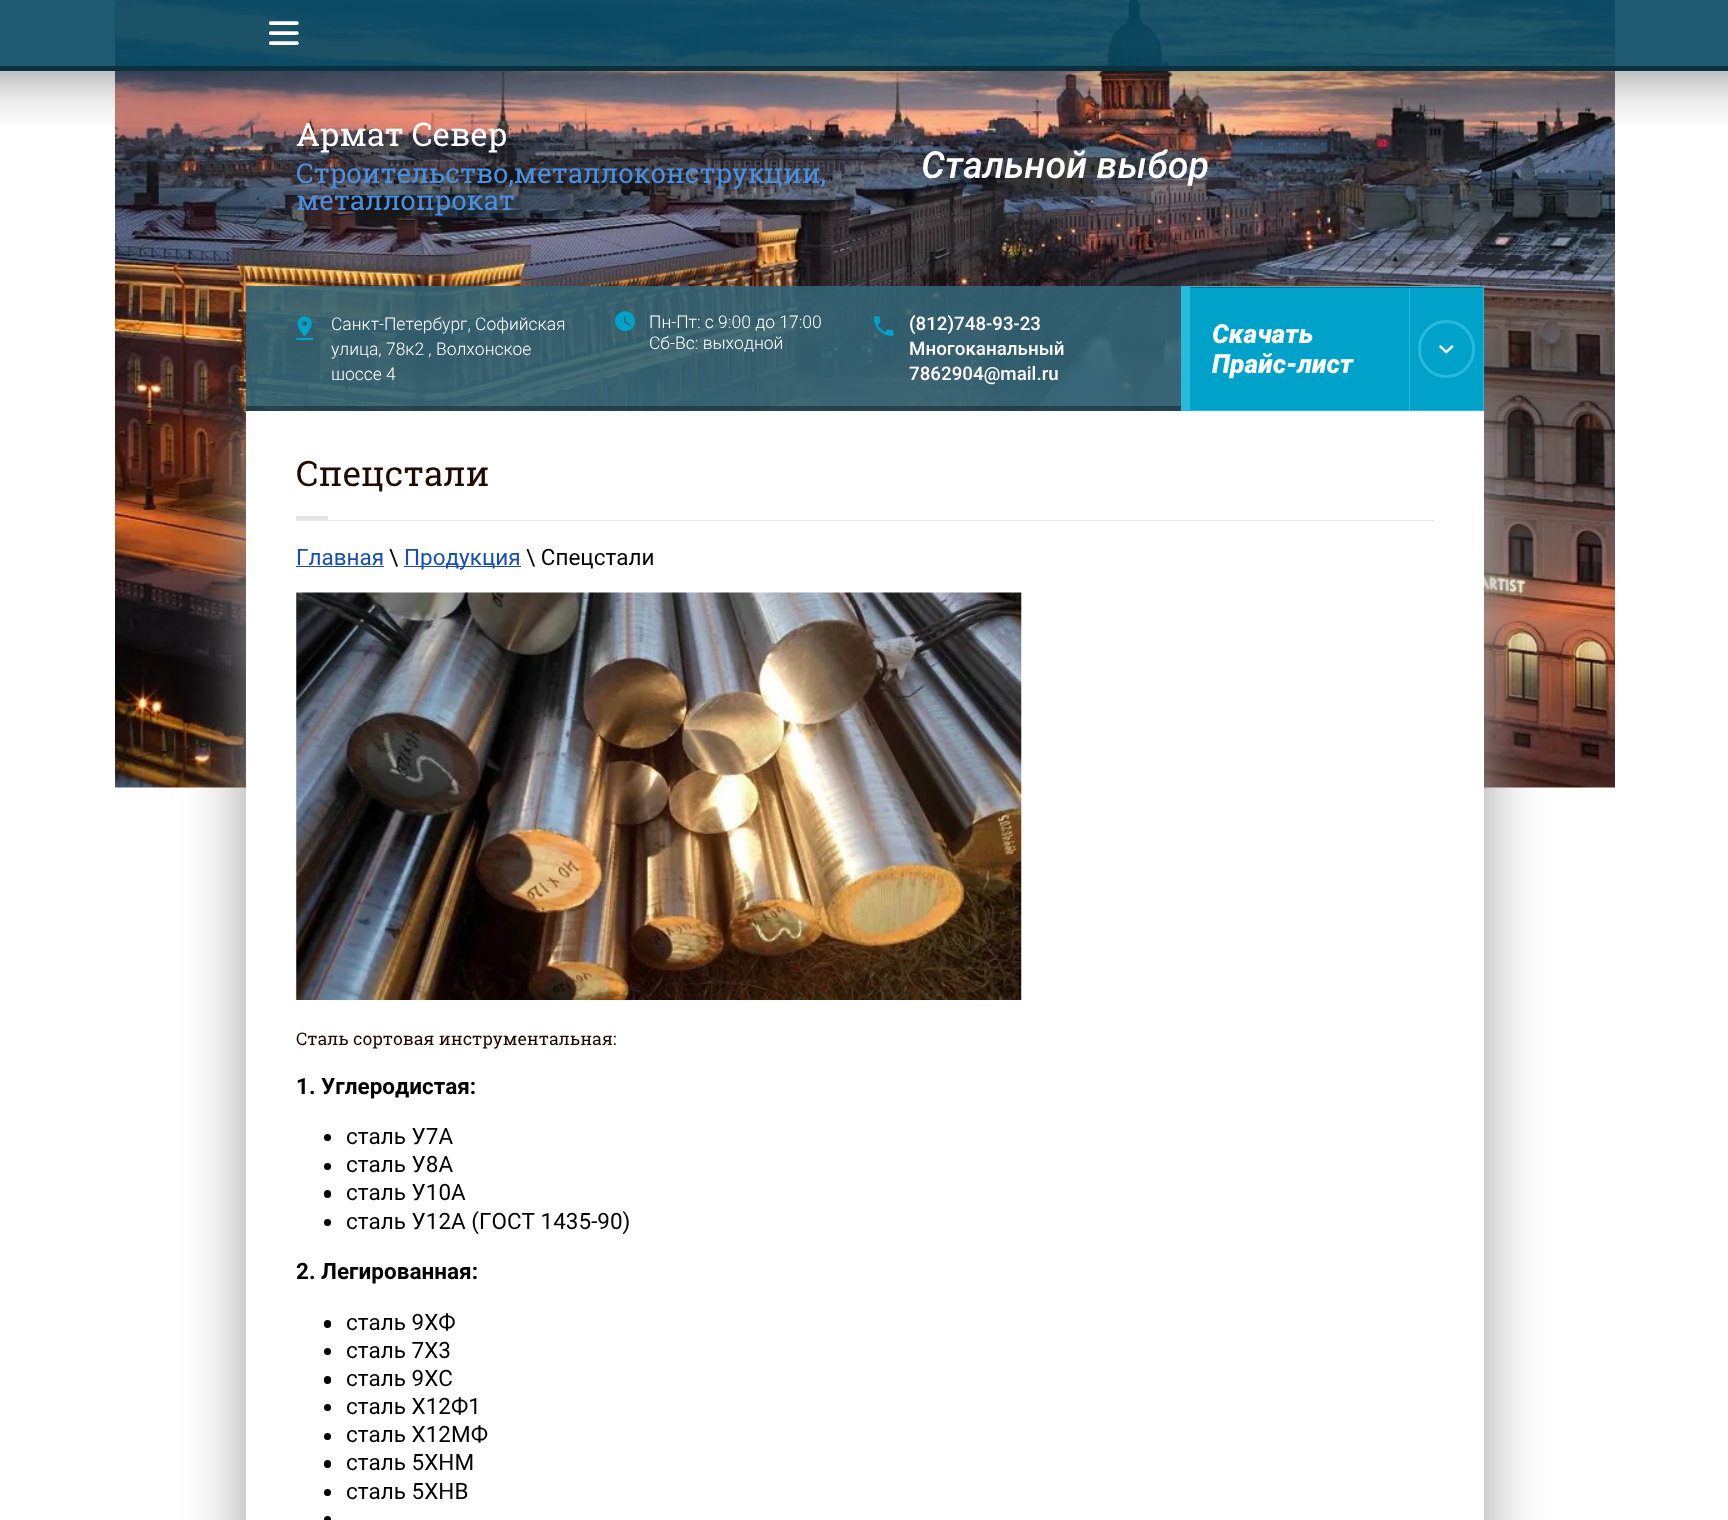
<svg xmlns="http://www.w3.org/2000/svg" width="1728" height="1520">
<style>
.a{font:32.5px Roboto Slab;fill:#fff}
.b{font:27.5px Roboto Slab;fill:#4a90e2}
.c{font:italic 500 37.5px Roboto;fill:#fff}
.d{font:300 17.5px Roboto;fill:#fff}
.e{font:500 18.75px Roboto;fill:#fff}
.f{font:italic 900 26.25px Roboto;fill:#fff}
.g{font:35px Roboto Slab;fill:#1e0b04}
.h{font:22.5px roboto;fill:#164eb5}
.i{font:22.5px roboto;fill:#000}
.j{font:17.5px Roboto Slab;fill:#1e0b04}
.k{font:bold 22.5px roboto;fill:#000}
</style>
<defs>
<clipPath id="clip1"><path d="M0 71h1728v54H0z"/></clipPath>
</defs>
<rect width="100%" height="100%" fill="#fff"/>
<image href="2.png" x="115" y="0" width="1500" height="788"/>
<g clip-path="url(#clip1)">
<path fill="#00000080" filter="blur(31px)" d="M-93 0h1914v71H-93z"/>
</g>
<path fill="#054862e6" d="M0 0h1728v66H0z"/>
<path fill="#0b313f" d="M0 66h1728v5H0z"/>
<image href="1.png" x="269" y="21" width="30" height="24"/>
<path fill="#9b9b9b" filter="blur(31px)" d="M246 411h1238v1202H246z"/>
<path fill="#326475e6" d="M246 286h1237v125H246z"/>
<path fill="#00000059" d="M246 406h935v5H246z"/>
<image href="3.png" x="296" y="316" width="17" height="24"/>
<image href="4.png" x="615" y="311" width="20" height="20"/>
<image href="5.png" x="874" y="316" width="20" height="20"/>
<path fill="#00a2c9" d="M1190 288h293v122H1190z"/>
<path fill="#28b9dc" d="M1190 286h294v1H1190z"/>
<path fill="#28b9dc" d="M1483 286h1v125H1483z"/>
<path fill="#28b9dc" d="M1190 410h294v1H1190z"/>
<path fill="#28b9dc" d="M1181 286h9v125H1181z"/>
<path fill="#28b9dc" d="M1409 288h1v122H1409z"/>
<image href="6.png" x="1439" y="345" width="15" height="9"/>
<rect fill="none" stroke="#28b9dc" stroke-width="3" x="1419.5" y="321.5" width="54" height="55" rx="27"/>
<path fill="#fff" d="M246 411h1238v1109H246z"/>
<path fill="#e4e4e4" d="M296 520h1138v1H296z"/>
<path fill="#e4e4e4" d="M296 516h32v4H296z"/>
<path fill="#164eb5" d="M296 566h88v1H296z"/>
<path fill="#164eb5" d="M404 566h117v1H404z"/>
<image href="7.png" x="296" y="592" width="726" height="408"/>
<circle fill="#000" cx="327.5" cy="1137.5" r="3.5"/>
<circle fill="#000" cx="327.5" cy="1166.5" r="3.5"/>
<rect fill="#000" x="324" y="1190" width="7" height="8" rx="3.5"/>
<circle fill="#000" cx="327.5" cy="1222.5" r="3.5"/>
<rect fill="#000" x="324" y="1320" width="7" height="8" rx="3.5"/>
<circle fill="#000" cx="327.5" cy="1351.5" r="3.5"/>
<rect fill="#000" x="324" y="1376" width="7" height="8" rx="3.5"/>
<circle fill="#000" cx="327.5" cy="1407.5" r="3.5"/>
<circle fill="#000" cx="327.5" cy="1436.5" r="3.5"/>
<rect fill="#000" x="324" y="1460" width="7" height="8" rx="3.5"/>
<circle fill="#000" cx="327.5" cy="1492.5" r="3.5"/>
<rect fill="#000" x="324" y="1516" width="7" height="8" rx="3.5"/>
<text class="a" x="296" y="146">Армат Север</text>
<text class="b" x="296" y="183">Строительство,металлоконструкции,</text>
<text class="b" x="296" y="210">металлопрокат</text>
<text class="c" x="921" y="178">Стальной выбор</text>
<text class="d" x="331" y="330">Санкт-Петербург, Софийская</text>
<text class="d" x="331" y="355">улица, 78к2 , Волхонское</text>
<text class="d" x="331" y="380">шоссе 4</text>
<text class="d" x="649" y="328">Пн-Пт: с 9:00 до 17:00</text>
<text class="d" x="649" y="349">Сб-Вс: выходной</text>
<text class="e" x="909" y="330">(812)748-93-23</text>
<text class="e" x="909" y="355">Многоканальный</text>
<text class="e" x="909" y="380">7862904@mail.ru</text>
<text class="f" x="1212" y="343">Скачать</text>
<text class="f" x="1212" y="373">Прайс-лист</text>
<text class="g" x="296" y="486">Спецстали</text>
<text class="h" x="296" y="565">Главная</text>
<text class="i" x="389" y="565">\</text>
<text class="h" x="404" y="565">Продукция</text>
<text class="i" x="526" y="565">\ Спецстали</text>
<text class="j" x="296" y="1045">Сталь сортовая инструментальная:</text>
<text class="k" x="296" y="1094">1. Углеродистая:</text>
<text class="i" x="346" y="1144">сталь У7А</text>
<text class="i" x="346" y="1172">сталь У8А</text>
<text class="i" x="346" y="1200">сталь У10А</text>
<text class="i" x="346" y="1229">сталь У12А (ГОСТ 1435-90)</text>
<text class="k" x="296" y="1279">2. Легированная:</text>
<text class="i" x="346" y="1330">сталь 9ХФ</text>
<text class="i" x="346" y="1358">сталь 7Х3</text>
<text class="i" x="346" y="1386">сталь 9ХС</text>
<text class="i" x="346" y="1414">сталь Х12Ф1</text>
<text class="i" x="346" y="1442">сталь Х12МФ</text>
<text class="i" x="346" y="1470">сталь 5ХНМ</text>
<text class="i" x="346" y="1499">сталь 5ХНВ</text>
</svg>
